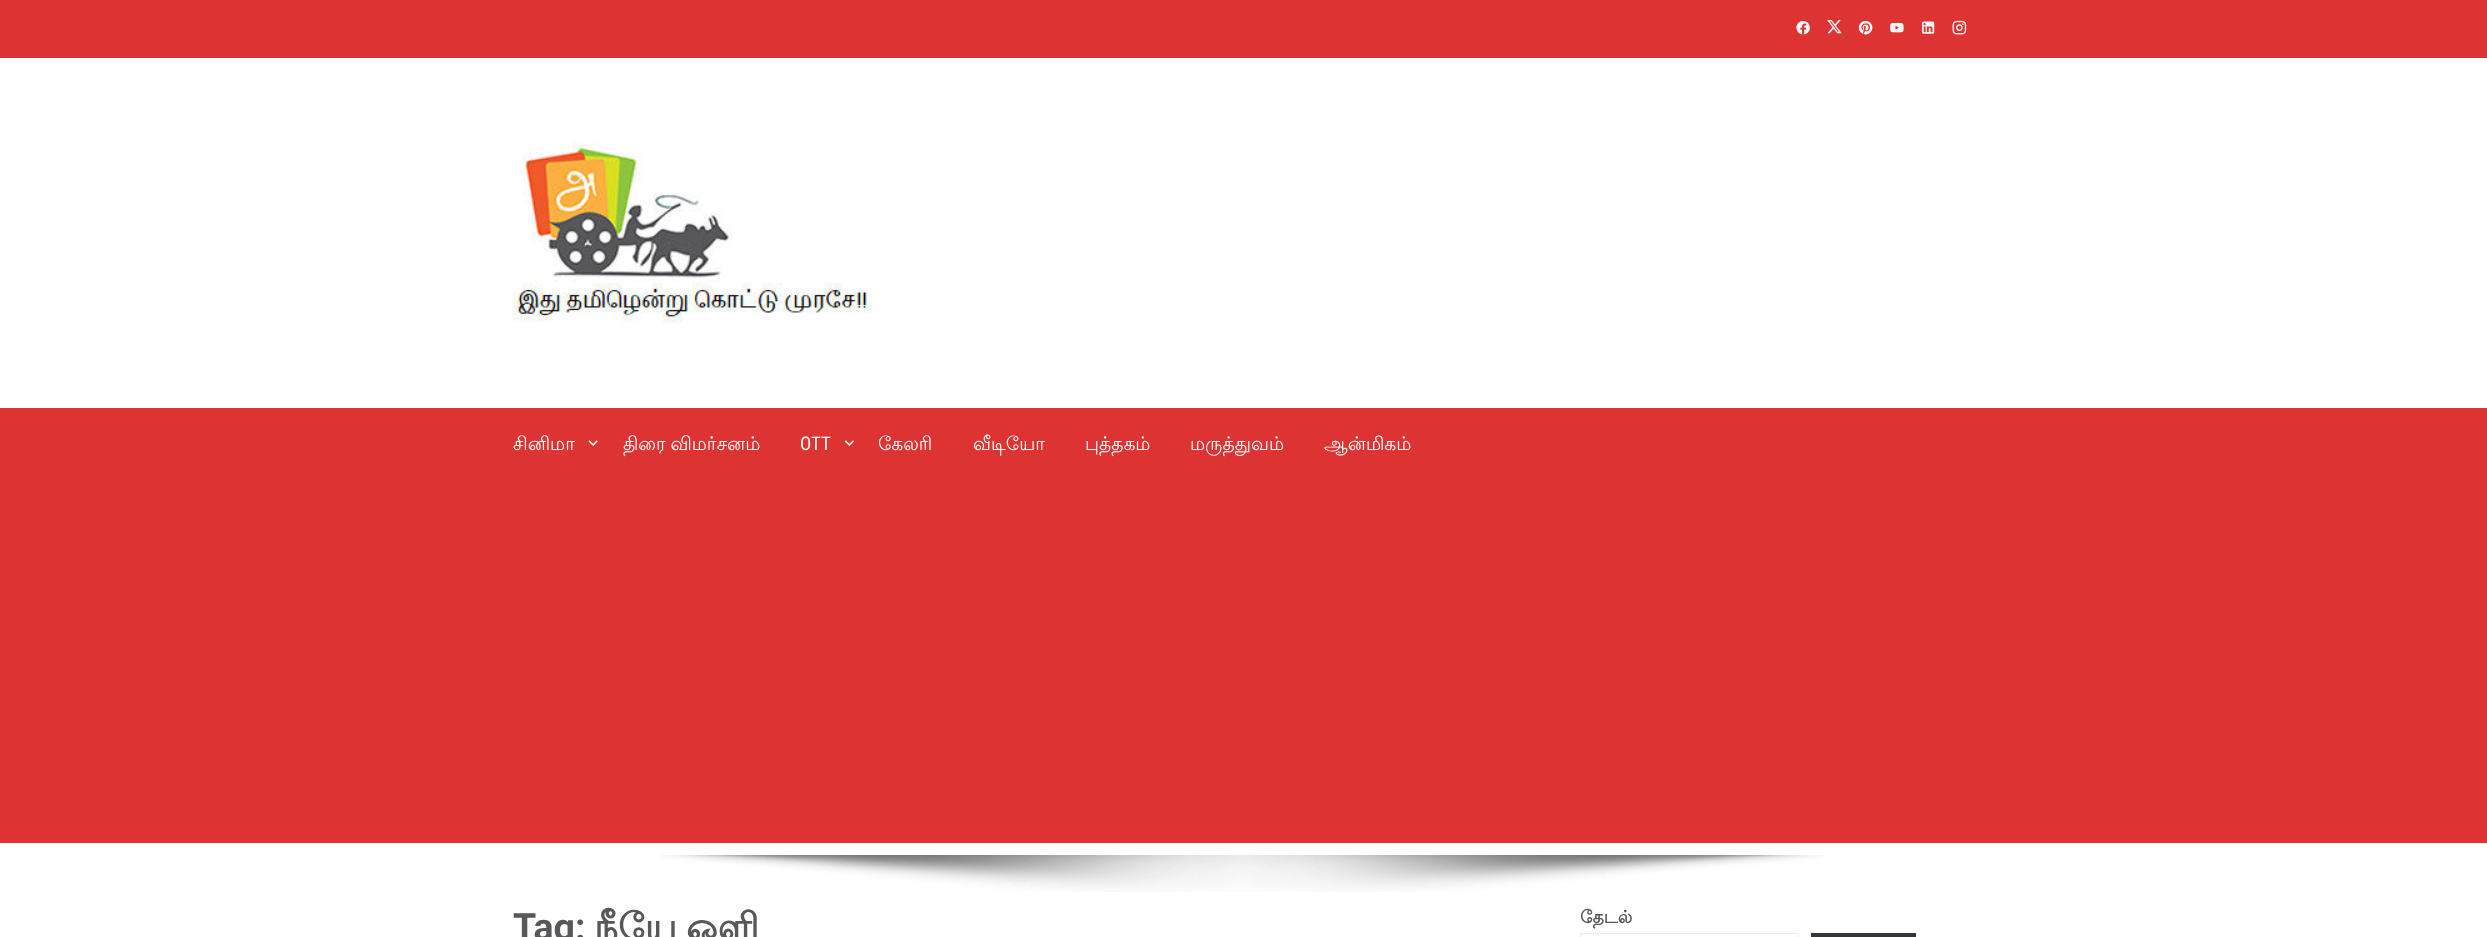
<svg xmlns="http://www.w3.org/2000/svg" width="2487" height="937">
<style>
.a{font:18.75px Lohit Tamil;fill:#fff}
.b{font:18.75px Roboto Condensed;fill:#fff}
.c{font:bold 37.5px Roboto;fill:#58585a}
.d{font:bold 37.5px Lohit Tamil;fill:#58585a}
.e{font:bold 17.5px Lohit Tamil;fill:#58585a}
</style>
<rect width="100%" height="100%" fill="#fff"/>
<path fill="#d33" d="M0 0h2487v58H0z"/>
<image href="1.png" x="1796" y="20" width="14" height="15"/>
<image href="2.png" x="1827" y="20" width="15" height="14"/>
<image href="3.png" x="1858" y="20" width="15" height="15"/>
<image href="4.png" x="1890" y="22" width="14" height="11"/>
<image href="5.png" x="1922" y="21" width="13" height="13"/>
<image href="6.png" x="1952" y="20" width="15" height="15"/>
<image href="7.png" x="512" y="142" width="361" height="181"/>
<path fill="#d33" d="M0 408h2487v435H0z"/>
<image href="8.png" x="588" y="440" width="10" height="6"/>
<image href="9.png" x="844" y="440" width="10" height="6"/>
<image href="10.png" x="661" y="855" width="1165" height="37"/>
<path fill="none" stroke="#eee" d="M1580.5 933.5h218v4H1580.5z"/>
<path fill="#32373c" d="M1811 933h105v4H1811z"/>
<text class="a" x="513" y="450">சினிமா</text>
<text class="a" x="623" y="450" word-spacing="-1">திரை விமர்சனம்</text>
<text class="b" x="800" y="450">OTT</text>
<text class="a" x="878" y="450">கேலரி</text>
<text class="a" x="973" y="450">வீடியோ</text>
<text class="a" x="1085" y="450">புத்தகம்</text>
<text class="a" x="1190" y="450">மருத்துவம்</text>
<text class="a" x="1324" y="450">ஆன்‌மிகம்</text>
<text class="c" x="513" y="940">Tag:</text>
<text class="d" x="594" y="940" word-spacing="-2">நீயே ஒளி</text>
<text class="e" x="1580" y="923">தேடல்</text>
</svg>
